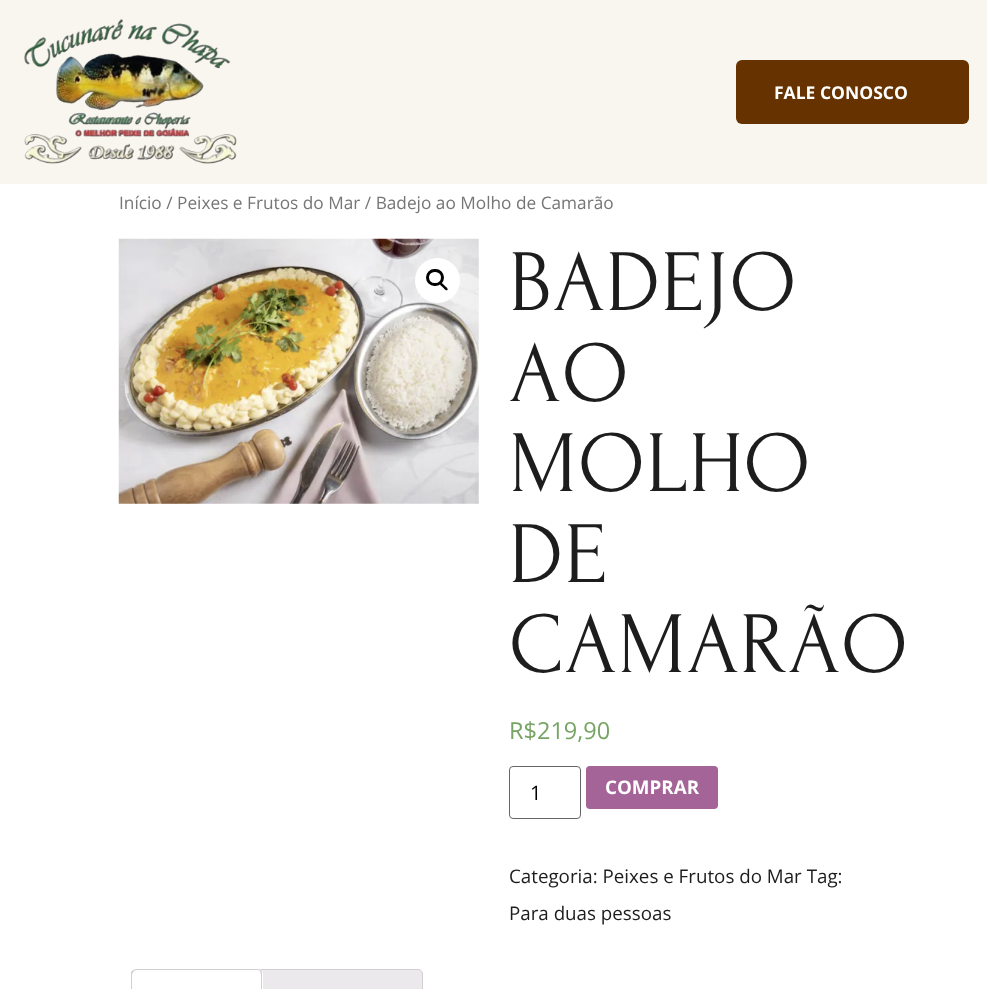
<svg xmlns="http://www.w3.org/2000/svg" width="987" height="989">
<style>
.a{font:bold 17.5px Open Sans;fill:#fff}
.b{font:17.25px Open Sans;fill:#767676}
.c{font:87.5px Forum;letter-spacing:1.25px;fill:#1d1d1d}
.d{font:23.5px Open Sans;fill:#77a464}
.e{font:20px Open Sans;fill:#000}
.f{font:bold 18.75px Open Sans;fill:#fff}
.g{font:18.75px Open Sans;fill:#1d1d1d}
</style>
<rect width="100%" height="100%" fill="#fff"/>
<path fill="#f9f6f0" d="M0 0h987v184H0z"/>
<image href="1.png" x="24" y="18" width="213" height="146"/>
<rect fill="#630" x="736" y="60" width="233" height="64" rx="6"/>
<image href="2.png" x="118" y="238" width="361" height="266"/>
<circle fill="#fff" cx="437.5" cy="280.5" r="22.5"/>
<rect fill="none" stroke="#000" stroke-width="3" x="427.5" y="270.5" width="15" height="14" rx="7"/>
<path fill="#000" d="M440 283c1.5-1.5 4 2 4.5 2.5c1 1 4 3 3 4.5c-1.5 1.5-4-2-4.5-2.5c-1-1-4-3-3-4.5z"/>
<rect fill="none" stroke="#666" x="509.5" y="766.5" width="71" height="52" rx="3.5"/>
<rect fill="#a46497" x="586" y="766" width="132" height="43" rx="4"/>
<path fill="#ebe9eb" stroke="#d3ced2" d="M260 969.5h158c2.5 0 4.5 2 4.5 4.5v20.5h-167v-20.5c0-2.5 2-4.5 4.5-4.5z"/>
<path fill="#fff" d="M136 969h122c3 0 5 2 5 5v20h-132v-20c0-3 2-5 5-5z"/>
<path fill="#d3ced2" d="M136 969l-3 1l1 1l2-1h122l2 1l1-1c-1 0-2-1-3-1z"/>
<path fill="#d3ced2" d="M262 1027v-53c0-1 0-3-1-4l-1 1l1 3v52z"/>
<path fill="#d3ced2" d="M131 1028l2-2h-1v-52l2-3l-1-1l-2 2z"/>
<text class="a" x="774" y="99">FALE CONOSCO</text>
<text class="b" x="119" y="209">Início / Peixes e Frutos do Mar / Badejo ao Molho de Camarão</text>
<text class="c" x="509" y="310">BADEJO</text>
<text class="c" x="509" y="401">AO</text>
<text class="c" x="509" y="491">MOLHO</text>
<text class="c" x="509" y="582">DE</text>
<text class="c" x="509" y="672">CAMARÃO</text>
<text class="d" x="509" y="739">R$219,90</text>
<text class="e" x="530" y="800">1</text>
<text class="f" x="605" y="794">COMPRAR</text>
<text class="g" x="509" y="883">Categoria: Peixes e Frutos do Mar Tag:</text>
<text class="g" x="509" y="920">Para duas pessoas</text>
</svg>
